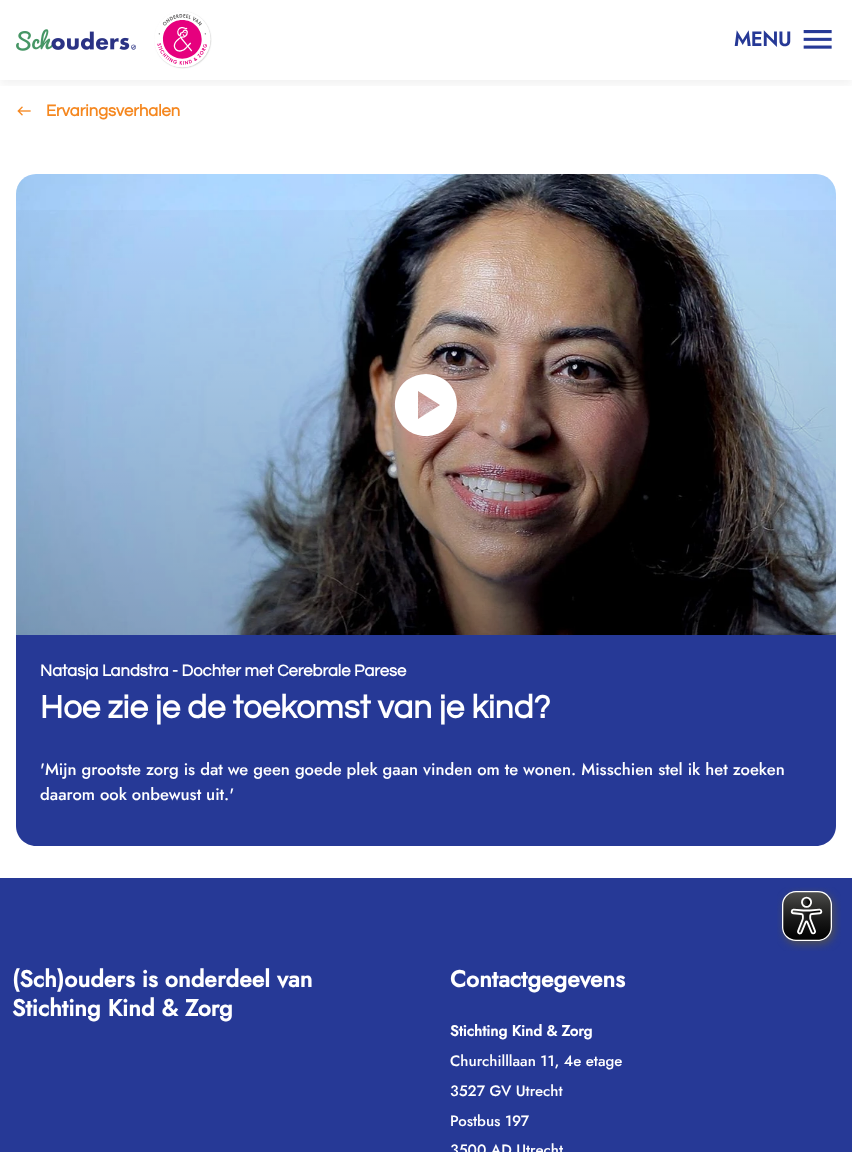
<svg xmlns="http://www.w3.org/2000/svg" width="852" height="1152">
<style>
.a{font:bold 20px Jost;fill:#263996}
.b{font:bold 16.6px Questrial;fill:#f5871f}
.c{font:bold 16.6px Questrial;fill:#fff}
.d{font:bold 33.2px Questrial;fill:#fff}
.e{font:500 16.6px Jost;fill:#fff}
.f{font:bold 23.25px Jost;fill:#fff}
.g{font:bold 15px Jost;fill:#fff}
.h{font:500 15px Jost;fill:#fff}
</style>
<defs>
<clipPath id="clip1"><path d="M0 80h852v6H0z"/></clipPath>
<linearGradient id="g1" gradientUnits="userSpaceOnUse" x1="426" y1="169" x2="426" y2="640"><stop offset="0" stop-color="#000" stop-opacity="0"/><stop offset="1" stop-color="#000" stop-opacity="0.25"/></linearGradient>
</defs>
<rect width="100%" height="100%" fill="#fff"/>
<g clip-path="url(#clip1)">
<path fill="#0000000d" filter="blur(5px)" d="M0 5h852v80H0z"/>
</g>
<image href="1.png" x="16" y="29" width="120" height="22"/>
<image href="2.png" x="154" y="11" width="58" height="58"/>
<image href="3.png" x="803" y="30" width="29" height="19"/>
<image href="4.png" x="17" y="106" width="14" height="10"/>
<image href="5.png" x="16" y="174" width="820" height="461"/>
<path fill="url(#g1)" d="M16 210h820v425H16z"/>
<path fill="#fff" d="M426 374c-7 0-13 2-19 6c-23 18-11 56 19 56c30 0 42-38 19-56c-6-4-12-6-19-6zm-8 45v-28l22 14z"/>
<path fill="#263996" d="M16 635h820v191c0 11-9 20-20 20h-780c-11 0-20-9-20-20z"/>
<path fill="#263996" d="M0 878h852v274H0z"/>
<image href="6.png" x="777" y="887" width="64" height="64"/>
<text class="a" x="734" y="46">MENU</text>
<text class="b" x="46" y="116">Ervaringsverhalen</text>
<text class="c" x="40" y="676">Natasja Landstra - Dochter met Cerebrale Parese</text>
<text class="d" x="40" y="718">Hoe zie je de toekomst van je kind?</text>
<text class="e" x="40" y="775">'Mijn grootste zorg is dat we geen goede plek gaan vinden om te wonen. Misschien stel ik het zoeken</text>
<text class="e" x="40" y="800">daarom ook onbewust uit.'</text>
<text class="f" x="12" y="987">(Sch)ouders is onderdeel van</text>
<text class="f" x="12" y="1016">Stichting Kind &amp; Zorg</text>
<text class="f" x="450" y="987">Contactgegevens</text>
<text class="g" x="450" y="1036">Stichting Kind &amp; Zorg</text>
<text class="h" x="450" y="1066">Churchilllaan 11, 4e etage</text>
<text class="h" x="450" y="1096">3527 GV Utrecht</text>
<text class="h" x="450" y="1126">Postbus 197</text>
<text class="h" x="450" y="1155">3500 AD Utrecht</text>
</svg>
